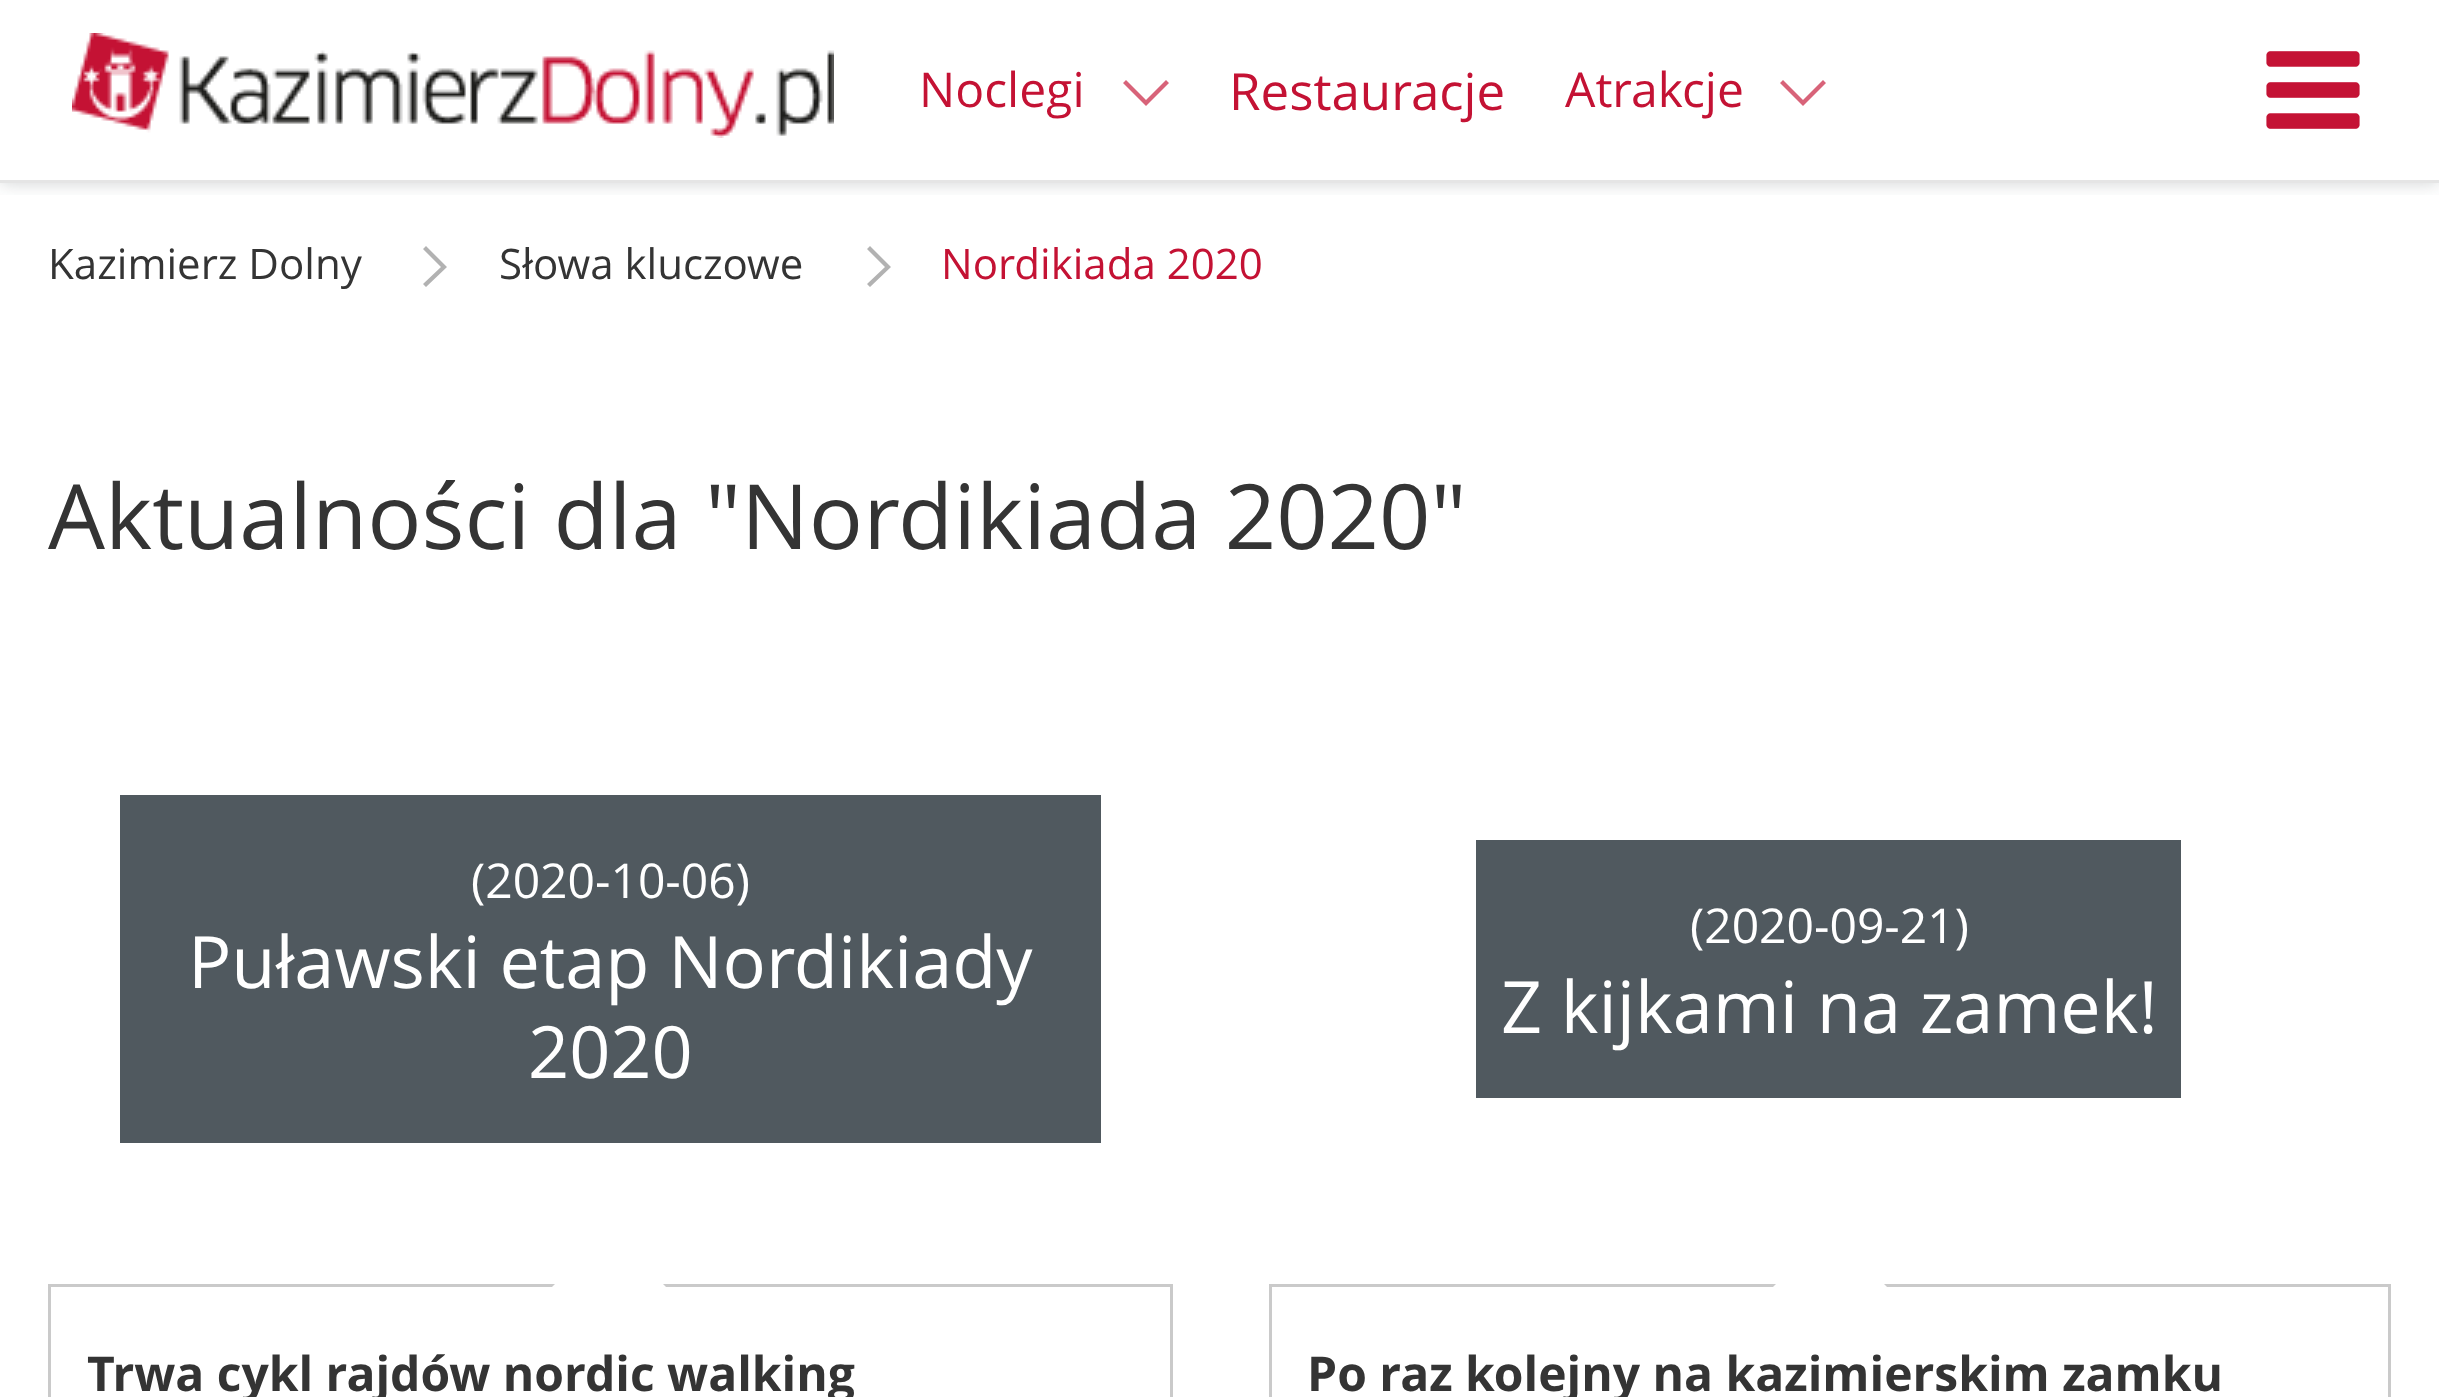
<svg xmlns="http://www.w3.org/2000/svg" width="2439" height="1397">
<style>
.a{font:48px Open Sans;fill:#c41234}
.b{font:51px Open Sans;fill:#c41234}
.c{font:42px Open Sans;fill:#343434}
.d{font:42px Open Sans;fill:#c41234}
.e{font:90px Open Sans;fill:#343434}
.f{font:48px Open Sans;fill:#fff}
.g{font:72px Open Sans;fill:#fff}
.h{font:bold 48px Open Sans;fill:#343434}
</style>
<defs>
<clipPath id="clip1"><path d="M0 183h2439v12H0z"/></clipPath>
</defs>
<rect width="100%" height="100%" fill="#fff"/>
<g clip-path="url(#clip1)">
<path fill="#16222a33" filter="blur(9px)" d="M0 0h2439v183H0z"/>
</g>
<path fill="#e5e5e5" d="M0 180h2439v3H0z"/>
<image href="1.png" x="72" y="33" width="762" height="105"/>
<path fill="#d86379" d="M1166 80l3 3l-23 23l-23-23l3-3l20 20z"/>
<path fill="#d86379" d="M1823 80l3 3l-23 23l-23-23l3-3l20 20z"/>
<image href="2.png" x="2266" y="51" width="94" height="78"/>
<path fill="#b2b2b2" d="M423 249l3-3l21 21l-21 20l-3-3l18-17z"/>
<path fill="#b2b2b2" d="M867 249l3-3l21 21l-21 20l-3-3l18-17z"/>
<path fill="#50595f" d="M120 795h981v348H120z"/>
<path fill="none" stroke="#cacaca" stroke-width="3" d="M49.5 1285.5h1122v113H49.5z"/>
<path fill="#fff" d="M681 1302h-144l72-72z"/>
<path fill="#50595f" d="M1476 840h705v258H1476z"/>
<path fill="none" stroke="#cacaca" stroke-width="3" d="M1270.5 1285.5h1119v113H1270.5z"/>
<path fill="#fff" d="M1902 1302h-144l72-72z"/>
<text class="a" x="919" y="107">Noclegi</text>
<text class="b" x="1229" y="110">Restauracje</text>
<text class="a" x="1565" y="107">Atrakcje</text>
<text class="c" x="48" y="279">Kazimierz Dolny</text>
<text class="c" x="499" y="279">Słowa kluczowe</text>
<text class="d" x="941" y="279">Nordikiada 2020</text>
<text class="e" x="48" y="549">Aktualności dla "Nordikiada 2020"</text>
<text class="f" x="471" y="898">(2020-10-06)</text>
<text class="g" x="188" y="988">Puławski etap Nordikiady</text>
<text class="g" x="528" y="1078">2020</text>
<text class="h" x="87" y="1391">Trwa cykl rajdów nordic walking</text>
<text class="f" x="1690" y="943">(2020-09-21)</text>
<text class="g" x="1501" y="1033">Z kijkami na zamek!</text>
<text class="h" x="1307" y="1391">Po raz kolejny na kazimierskim zamku</text>
</svg>
